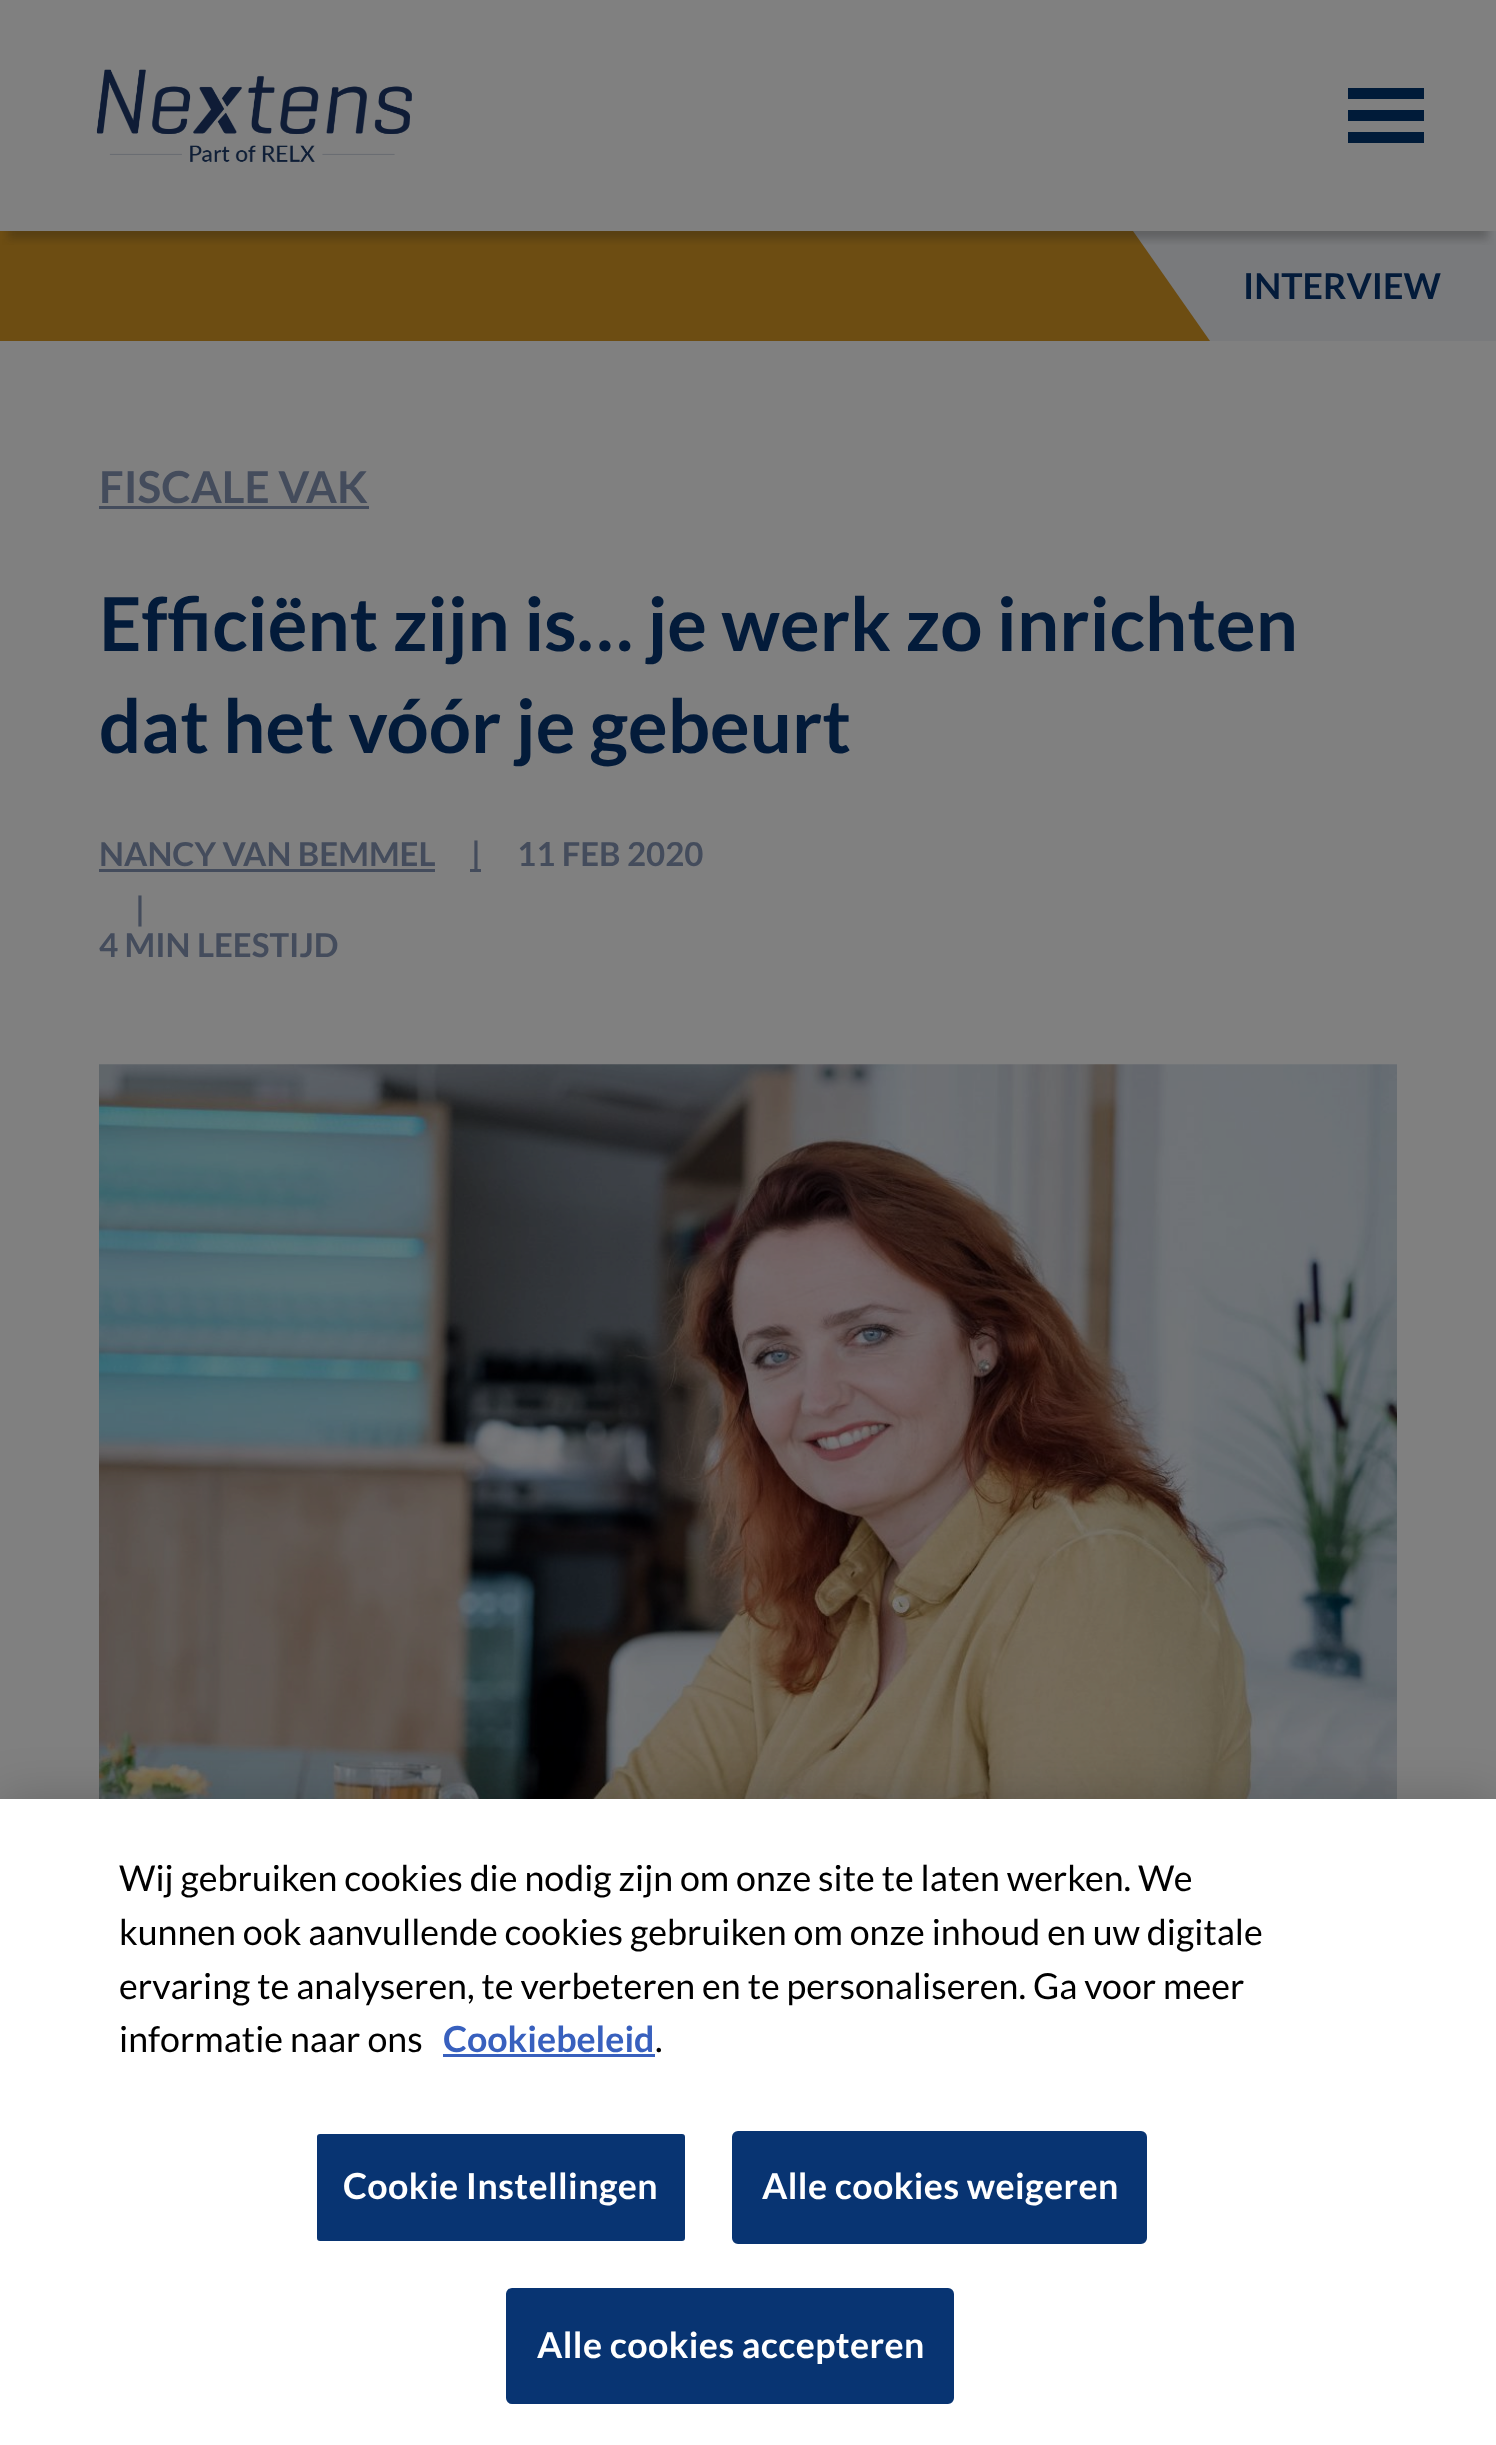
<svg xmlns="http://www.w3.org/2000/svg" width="1496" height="2445">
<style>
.a{font:bold 35.75px Lato;fill:#031b3a}
.b{font:bold 44px Lato;fill:#444c5c}
.c{font:bold 74.25px Lato;fill:#031b3a}
.d{font:bold 33px Lato;fill:#444c5c}
.e{font:35.75px Lato;fill:#000}
.f{font:bold 35.75px Lato;fill:#3860be}
.g{font:bold 35.75px Lato;letter-spacing:0.4px;fill:#fff}
</style>
<defs>
<clipPath id="clip1"><path d="M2 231h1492v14H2z"/></clipPath>
</defs>
<rect width="100%" height="100%" fill="#808080"/>
<path fill="#6d4d12" d="M0 231h1210v110H0z"/>
<path fill="#797a7c" d="M1133 231h363l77 110h-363z"/>
<g clip-path="url(#clip1)">
<path fill="#19191940" filter="blur(4px)" d="M8 25h1480v214H8z"/>
</g>
<image href="1.png" x="96" y="69" width="316" height="93"/>
<path fill="#001b39" d="M1348 143h76v-11h-76zm0-55v11h76v-11zm0 33h76v-11h-76z"/>
<path fill="#444c5c" d="M99 506h270v3H99z"/>
<path fill="#444c5c" d="M99 869h336v3H99z"/>
<path fill="#444c5c" d="M470 869h11v3H470z"/>
<image href="2.png" x="99" y="1064" width="1298" height="735"/>
<path fill="#00000033" filter="blur(25px)" d="M0 1799h1496v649H0z"/>
<path fill="#fff" d="M0 1799h1496v646H0z"/>
<path fill="#3860be" d="M443 2054h212v3H443z"/>
<rect fill="#083472" stroke="#fff" stroke-width="3" x="315.5" y="2132.5" width="371" height="110" rx="4.5"/>
<rect fill="#083472" stroke="#083472" stroke-width="3" x="733.5" y="2132.5" width="412" height="110" rx="4.5"/>
<rect fill="#083472" stroke="#083472" stroke-width="3" x="507.5" y="2289.5" width="445" height="113" rx="4.5"/>
<text class="a" x="1243" y="299">INTERVIEW</text>
<text class="b" x="99" y="503">FISCALE VAK</text>
<text class="c" x="99" y="651">Efficiënt zijn is… je werk zo inrichten</text>
<text class="c" x="99" y="753">dat het vóór je gebeurt</text>
<text class="d" x="99" y="866">NANCY VAN BEMMEL</text>
<text class="d" x="471" y="866">|</text>
<text class="d" x="517" y="866">11 FEB 2020</text>
<text class="d" x="135" y="921">|</text>
<text class="d" x="99" y="957">4 MIN LEESTIJD</text>
<text class="e" x="119" y="1891">Wij gebruiken cookies die nodig zijn om onze site te laten werken. We</text>
<text class="e" x="119" y="1945">kunnen ook aanvullende cookies gebruiken om onze inhoud en uw digitale</text>
<text class="e" x="119" y="1999">ervaring te analyseren, te verbeteren en te personaliseren. Ga voor meer</text>
<text class="e" x="119" y="2052">informatie naar ons</text>
<text class="f" x="443" y="2052">Cookiebeleid</text>
<text class="e" x="655" y="2052">.</text>
<text class="g" x="343" y="2199">Cookie Instellingen</text>
<text class="g" x="762" y="2199">Alle cookies weigeren</text>
<text class="g" x="537" y="2358">Alle cookies accepteren</text>
</svg>
